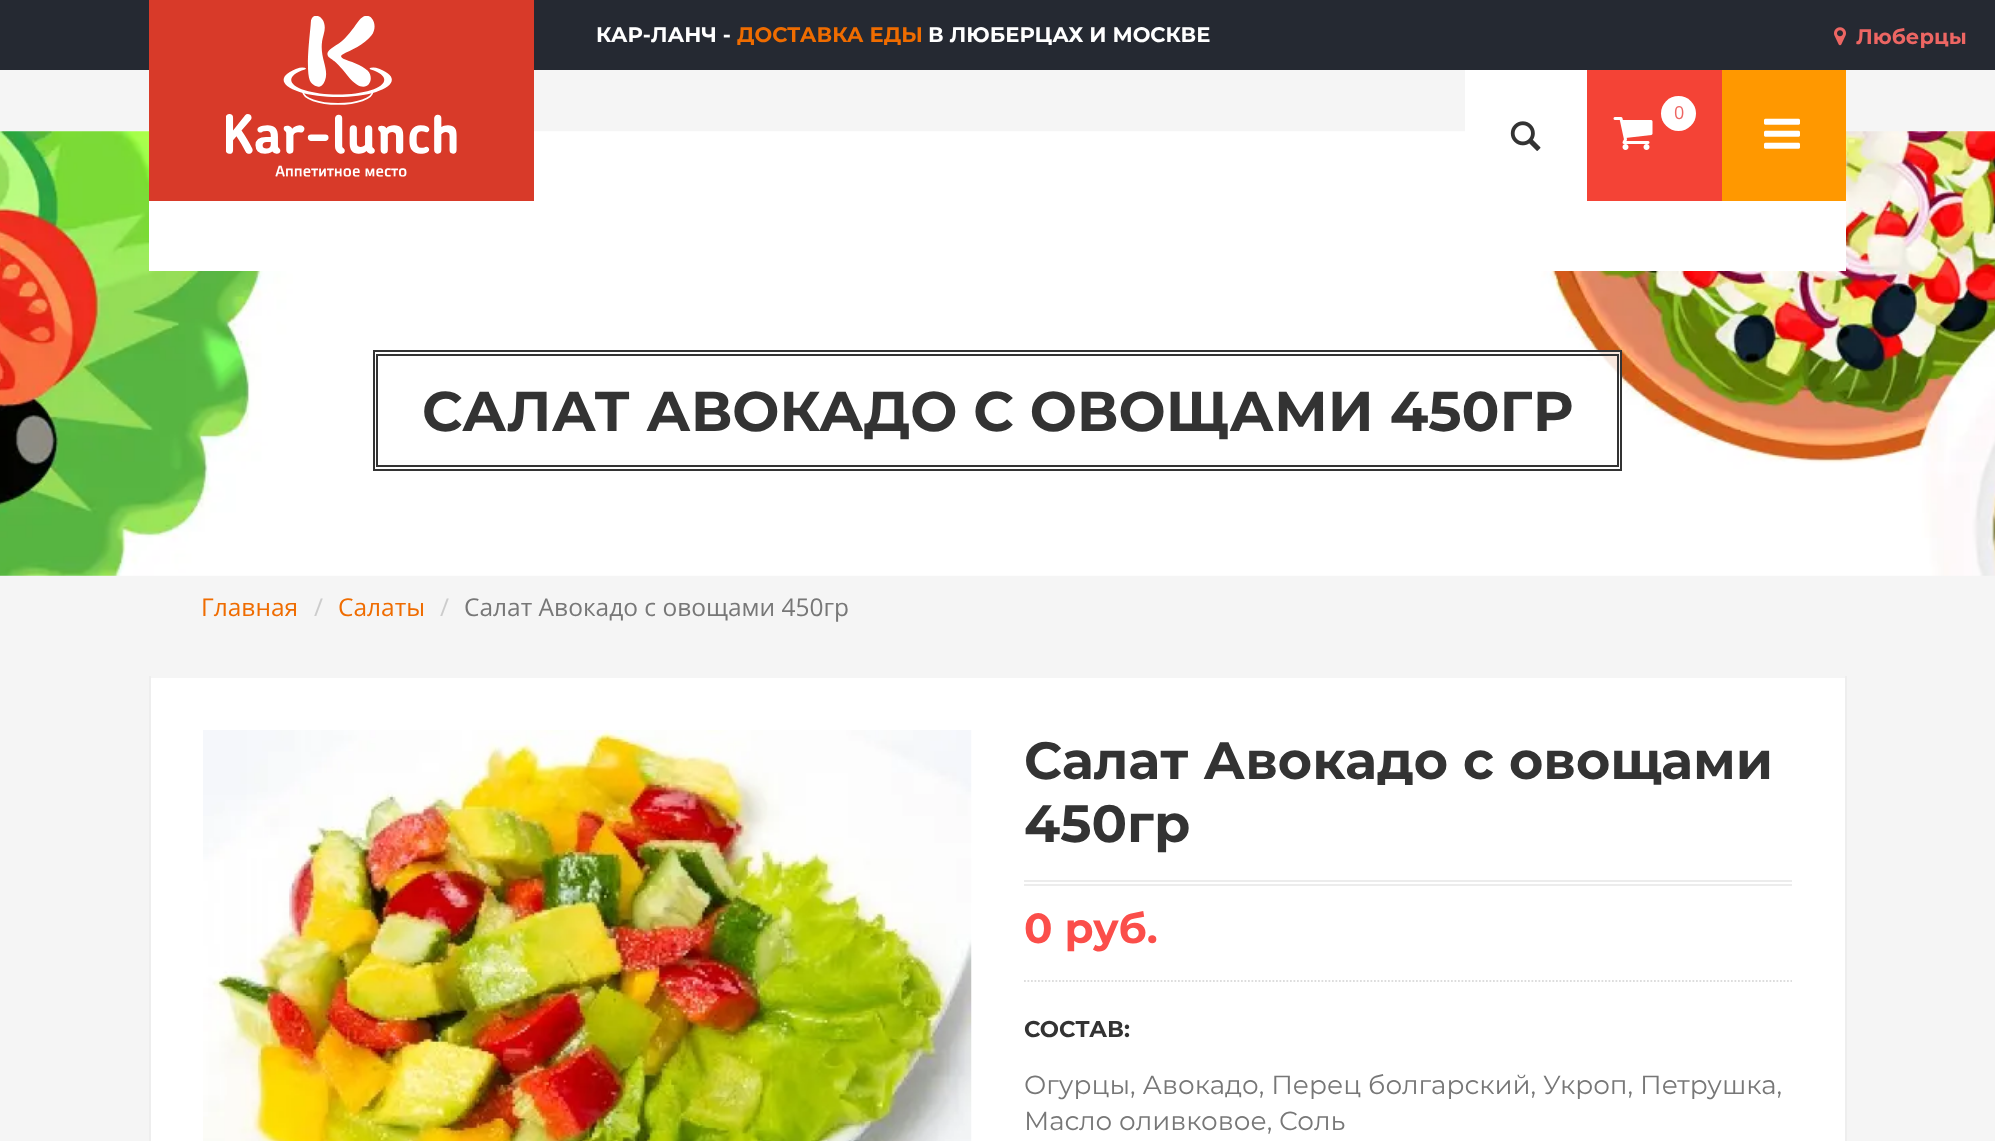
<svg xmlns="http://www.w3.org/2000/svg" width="1995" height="1141">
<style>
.a{font:bold 21px Montserrat;fill:#fff}
.b{font:bold 21px Montserrat;fill:#ef6c00}
.c{font:bold 21px Montserrat;fill:#ed6663}
.d{font:18px Open Sans;letter-spacing:1px;fill:#ed6663}
.e{font:bold 56px Montserrat;fill:#333}
.f{font:24.5px Open Sans;fill:#ef6c00}
.g{font:24.5px Open Sans;fill:#ccc}
.h{font:24.5px Open Sans;fill:#777}
.i{font:bold 52.5px Montserrat;fill:#333}
.j{font:bold 42px Montserrat;fill:#fb4e4a}
.k{font:bold 22.75px Montserrat;fill:#333}
.l{font:26.25px Montserrat;fill:#777}
</style>
<rect width="100%" height="100%" fill="#f5f5f5"/>
<path fill="#252932" d="M0 0h1995v70H0z"/>
<image href="1.png" x="1834" y="27" width="12" height="19"/>
<image href="6.png" x="0" y="131" width="1995" height="445"/>
<path fill="#d83a29" d="M149 0h385v201H149z"/>
<image href="2.png" x="226" y="16" width="231" height="161"/>
<path fill="#fff" d="M149 201h1697v70H149z"/>
<path fill="#fff" d="M1465 70h122v131H1465z"/>
<image href="3.png" x="1510" y="121" width="31" height="30"/>
<path fill="#f44336" d="M1587 70h135v131H1587z"/>
<circle fill="#fff" cx="1678.5" cy="113.5" r="17.5"/>
<image href="4.png" x="1613" y="117" width="40" height="33"/>
<path fill="#ff9800" d="M1722 70h124v131H1722z"/>
<image href="5.png" x="1764" y="118" width="36" height="31"/>
<path fill="#ffffffd9" d="M1593 352h27v38H1593z"/>
<path fill="none" stroke="#333" stroke-width="2" d="M374 351h1247v119H374z"/>
<path fill="none" stroke="#333" stroke-width="2" d="M377 355h1241v111H377z"/>
<path fill="#fff" d="M151 678h1694v463H151z"/>
<path fill="#eee" d="M1845 676h2v465H1845z"/>
<path fill="#eee" d="M149 676h2v465H149z"/>
<image href="7.png" x="203" y="730" width="769" height="411"/>
<path fill="#ececec" d="M1024 880h768v2H1024z"/>
<path fill="#ececec" d="M1024 884h768v2H1024z"/>
<path fill="none" stroke="#ddd" stroke-width="1.8" stroke-dasharray="1.75 1.75" d="M1024 981h768"/>
<text class="a" x="596" y="42">КАР-ЛАНЧ -</text>
<text class="b" x="737" y="42">ДОСТАВКА ЕДЫ</text>
<text class="a" x="928" y="42">В ЛЮБЕРЦАХ И МОСКВЕ</text>
<text class="c" x="1856" y="44">Люберцы</text>
<text class="d" x="1674" y="119">0</text>
<text class="e" x="422" y="431">САЛАТ АВОКАДО С ОВОЩАМИ 450ГР</text>
<text class="f" x="201" y="616">Главная</text>
<text class="g" x="314" y="616">/</text>
<text class="f" x="338" y="616">Салаты</text>
<text class="g" x="440" y="616">/</text>
<text class="h" x="464" y="616">Салат Авокадо с овощами 450гр</text>
<text class="i" x="1024" y="779">Салат Авокадо с овощами</text>
<text class="i" x="1024" y="842">450гр</text>
<text class="j" x="1024" y="943">0 руб.</text>
<text class="k" x="1024" y="1037">СОСТАВ:</text>
<text class="l" x="1024" y="1094">Огурцы, Авокадо, Перец болгарский, Укроп, Петрушка,</text>
<text class="l" x="1024" y="1130">Масло оливковое, Соль</text>
</svg>
